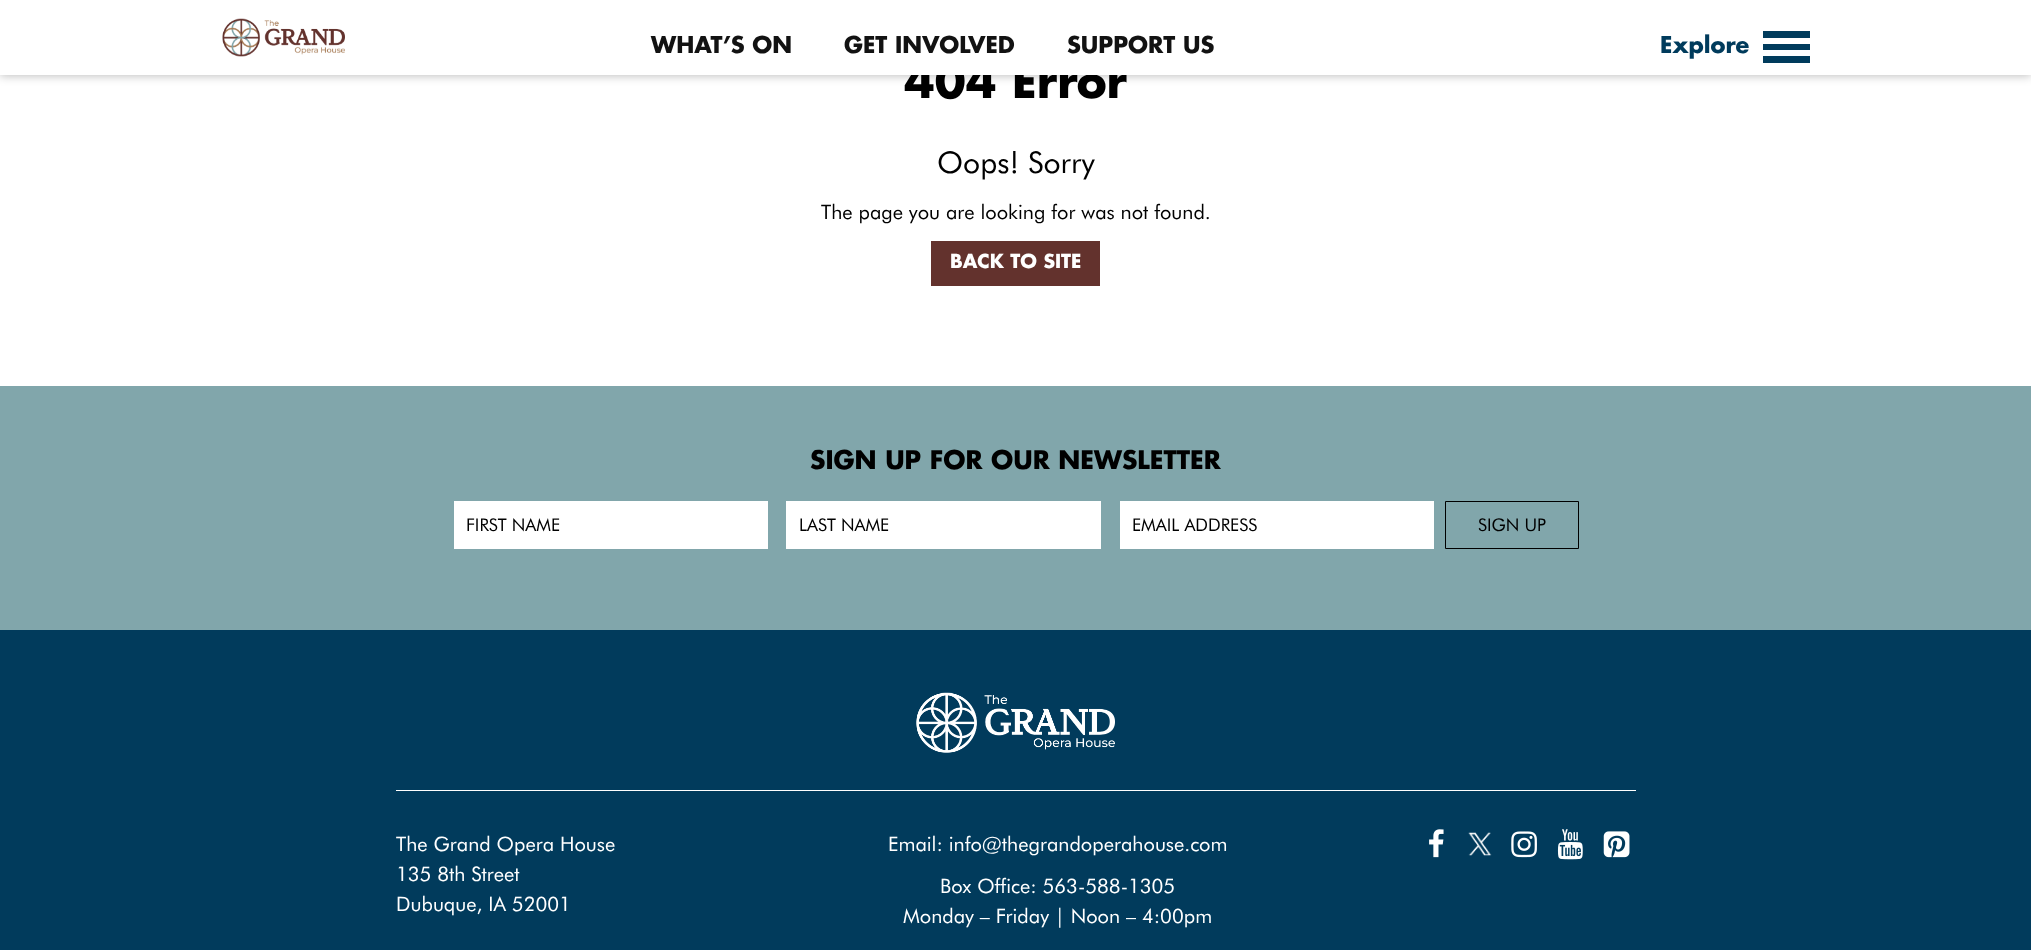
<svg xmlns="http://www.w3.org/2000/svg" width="2031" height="950">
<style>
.a{font:bold 45px Futura;fill:#000}
.b{font:bold 22.5px Futura;fill:#003b5c}
.c{font:bold 22.5px Futura;fill:#121212}
.d{font:30px Futura;fill:#000}
.e{font:20px Futura;fill:#000}
.f{font:bold 18.75px Futura;fill:#fff}
.g{font:bold 25px Futura;fill:#000}
.h{font:17.5px Futura;fill:#000}
.i{font:20px Futura;fill:#fff}
</style>
<rect width="100%" height="100%" fill="#fff"/>
<path fill="#00000040" filter="blur(5px)" d="M0 1h2031v75H0z"/>
<path fill="#63322d" d="M931 241h169v45H931z"/>
<path fill="#81a6ab" d="M0 386h2031v244H0z"/>
<path fill="#fff" d="M454 501h314v48H454z"/>
<path fill="#fff" d="M786 501h315v48H786z"/>
<path fill="#fff" d="M1120 501h314v48H1120z"/>
<path fill="none" stroke="#000" d="M1445.5 501.5h133v47H1445.5z"/>
<path fill="#013b5c" d="M0 630h2031v320H0z"/>
<path fill="#fff" d="M396 790h1240v1H396z"/>
<image href="2.png" x="916" y="692" width="199" height="61"/>
<image href="3.png" x="1429" y="829" width="15" height="29"/>
<image href="4.png" x="1468" y="832" width="24" height="24"/>
<image href="5.png" x="1511" y="831" width="26" height="27"/>
<image href="6.png" x="1557" y="829" width="26" height="31"/>
<image href="7.png" x="1603" y="831" width="27" height="27"/>
<text class="a" x="904" y="98">404 Error</text>
<path fill="#fff" d="M0 0h2031v75H0z"/>
<path fill="#003b5c" d="M1763 56h47v7H1763z"/>
<path fill="#003b5c" d="M1763 44h47v6H1763z"/>
<path fill="#003b5c" d="M1763 31h47v7H1763z"/>
<text class="b" x="1660" y="53">Explore</text>
<text class="c" x="1067" y="53">SUPPORT US</text>
<text class="c" x="844" y="53">GET INVOLVED</text>
<text class="c" x="651" y="53">WHAT’S ON</text>
<image href="1.png" x="222" y="18" width="123" height="39"/>
<text class="d" x="937" y="173">Oops! Sorry</text>
<text class="e" x="821" y="219">The page you are looking for was not found.</text>
<text class="f" x="950" y="268">BACK TO SITE</text>
<text class="g" x="810" y="469">SIGN UP FOR OUR NEWSLETTER</text>
<text class="h" x="466" y="531">FIRST NAME</text>
<text class="h" x="799" y="531">LAST NAME</text>
<text class="h" x="1132" y="531">EMAIL ADDRESS</text>
<text class="h" x="1478" y="531">SIGN UP</text>
<text class="i" x="396" y="851">The Grand Opera House</text>
<text class="i" x="396" y="881">135 8th Street</text>
<text class="i" x="396" y="911">Dubuque, IA 52001</text>
<text class="i" x="888" y="851">Email: info@thegrandoperahouse.com</text>
<text class="i" x="940" y="893">Box Office: 563-588-1305</text>
<text class="i" x="903" y="923">Monday – Friday | Noon – 4:00pm</text>
</svg>
